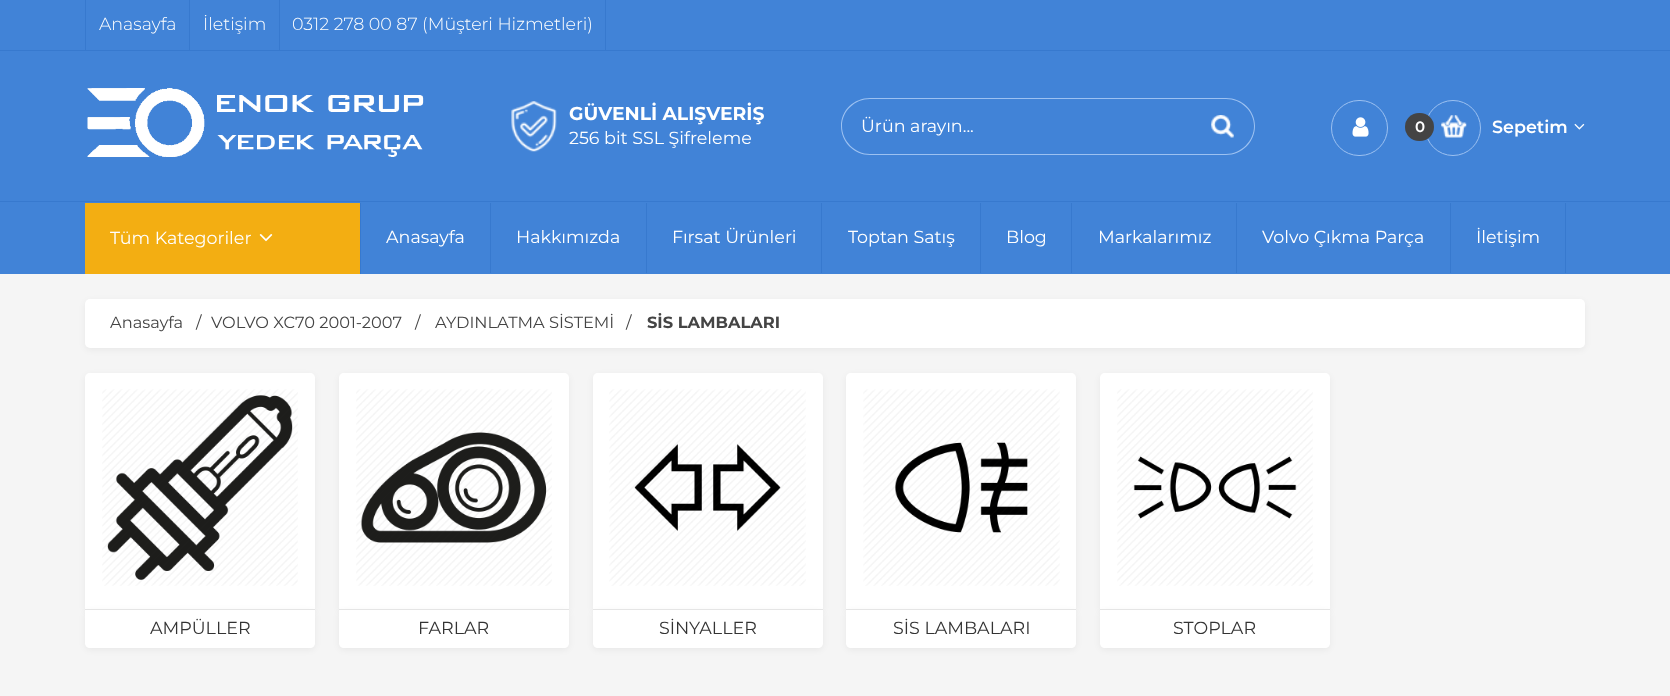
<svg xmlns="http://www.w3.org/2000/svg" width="1670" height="696">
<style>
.a{font:300 17.5px Montserrat;fill:#fff}
.b{font:bold 18.75px Montserrat;fill:#fff}
.c{font:17.5px Montserrat;fill:#fff}
.d{font:600 15px Montserrat;fill:#fff}
.e{font:600 17.5px Montserrat;fill:#fff}
.f{font:16.25px Montserrat;fill:#444}
.g{font:bold 16.25px Montserrat;fill:#444}
.h{font:17.5px Montserrat;fill:#333}
</style>
<rect width="100%" height="100%" fill="#f5f5f5"/>
<path fill="#4183d7" d="M0 0h1670v274H0z"/>
<path fill="#3779ce" d="M0 50h1670v1H0z"/>
<path fill="#3779ce" d="M85 0h1v50H85z"/>
<path fill="#3779ce" d="M189 0h1v50H189z"/>
<path fill="#3779ce" d="M605 0h1v50H605z"/>
<path fill="#3779ce" d="M279 0h1v50H279z"/>
<image href="1.png" x="87" y="88" width="337" height="69"/>
<image href="2.png" x="511" y="101" width="46" height="51"/>
<path fill="#9cc1f1" fill-rule="evenodd" d="M870 98h321v57h-321c-16 0-29-13-29-29c0-16 13-28 29-28zm0 1h321v55h-321c-15 0-28-13-28-28c0-15 13-27 28-27z"/>
<image href="3.png" x="1211" y="115" width="23" height="23"/>
<path fill="#9cc1f1" fill-rule="evenodd" d="M1191 98h35c16 0 29 12 29 28c0 16-13 29-29 29h-35zm0 1h35c15 0 28 12 28 27c0 15-13 28-28 28h-35z"/>
<rect fill="none" stroke="#9cc1f1" x="1331.5" y="100.5" width="56" height="55" rx="27.5"/>
<image href="4.png" x="1352" y="117" width="17" height="20"/>
<image href="5.png" x="1441" y="115" width="26" height="23"/>
<circle fill="none" stroke="#9cc1f1" cx="1453" cy="128" r="27.5"/>
<rect fill="#444" x="1405" y="113" width="29" height="28" rx="14"/>
<image href="6.png" x="1574" y="123" width="11" height="7"/>
<path fill="#3779ce" d="M0 201h1670v1H0z"/>
<path fill="#3779ce" d="M360 203h1v71H360z"/>
<path fill="#f3ae12" d="M85 203h275v71H85z"/>
<image href="7.png" x="259" y="234" width="14" height="8"/>
<path fill="#3779ce" d="M490 203h1v70H490z"/>
<path fill="#3779ce" d="M646 203h1v70H646z"/>
<path fill="#3779ce" d="M821 203h1v70H821z"/>
<path fill="#3779ce" d="M980 203h1v70H980z"/>
<path fill="#3779ce" d="M1071 203h1v70H1071z"/>
<path fill="#3779ce" d="M1236 203h1v70H1236z"/>
<path fill="#3779ce" d="M1450 203h1v70H1450z"/>
<path fill="#3779ce" d="M1565 203h1v70H1565z"/>
<rect fill="#0000000d" filter="blur(3px)" x="85" y="301" width="1500" height="49" rx="5"/>
<rect fill="#fff" x="85" y="299" width="1500" height="49" rx="5"/>
<rect fill="#0000000d" filter="blur(3px)" x="85" y="375" width="230" height="238" rx="5"/>
<path fill="#fff" d="M90 373h220c3 0 5 2 5 5v232h-230v-232c0-3 2-5 5-5z"/>
<image href="8.png" x="102" y="389" width="196" height="197"/>
<rect fill="#0000000d" filter="blur(3px)" x="85" y="611" width="230" height="39" rx="5"/>
<path fill="#fff" d="M85 609h230v34c0 3-2 5-5 5h-220c-3 0-5-2-5-5z"/>
<path fill="#e5e5e5" d="M85 609h230v1H85z"/>
<rect fill="#0000000d" filter="blur(3px)" x="339" y="375" width="230" height="238" rx="5"/>
<path fill="#fff" d="M344 373h220c3 0 5 2 5 5v232h-230v-232c0-3 2-5 5-5z"/>
<image href="9.png" x="356" y="389" width="196" height="197"/>
<rect fill="#0000000d" filter="blur(3px)" x="339" y="611" width="230" height="39" rx="5"/>
<path fill="#fff" d="M339 609h230v34c0 3-2 5-5 5h-220c-3 0-5-2-5-5z"/>
<path fill="#e5e5e5" d="M339 609h230v1H339z"/>
<rect fill="#0000000d" filter="blur(3px)" x="593" y="375" width="230" height="238" rx="5"/>
<path fill="#fff" d="M598 373h220c3 0 5 2 5 5v232h-230v-232c0-3 2-5 5-5z"/>
<image href="10.png" x="609" y="389" width="197" height="197"/>
<rect fill="#0000000d" filter="blur(3px)" x="593" y="611" width="230" height="39" rx="5"/>
<path fill="#fff" d="M593 609h230v34c0 3-2 5-5 5h-220c-3 0-5-2-5-5z"/>
<path fill="#e5e5e5" d="M593 609h230v1H593z"/>
<rect fill="#0000000d" filter="blur(3px)" x="846" y="375" width="230" height="238" rx="5"/>
<path fill="#fff" d="M851 373h220c3 0 5 2 5 5v232h-230v-232c0-3 2-5 5-5z"/>
<image href="11.png" x="863" y="389" width="197" height="197"/>
<rect fill="#0000000d" filter="blur(3px)" x="846" y="611" width="230" height="39" rx="5"/>
<path fill="#fff" d="M846 609h230v34c0 3-2 5-5 5h-220c-3 0-5-2-5-5z"/>
<path fill="#e5e5e5" d="M846 609h230v1H846z"/>
<rect fill="#0000000d" filter="blur(3px)" x="1100" y="375" width="230" height="238" rx="5"/>
<path fill="#fff" d="M1105 373h220c3 0 5 2 5 5v232h-230v-232c0-3 2-5 5-5z"/>
<image href="12.png" x="1117" y="389" width="196" height="197"/>
<rect fill="#0000000d" filter="blur(3px)" x="1100" y="611" width="230" height="39" rx="5"/>
<path fill="#fff" d="M1100 609h230v34c0 3-2 5-5 5h-220c-3 0-5-2-5-5z"/>
<path fill="#e5e5e5" d="M1100 609h230v1H1100z"/>
<text class="a" x="99" y="30">Anasayfa</text>
<text class="a" x="203" y="30">İletişim</text>
<text class="a" x="292" y="30">0312 278 00 87 (Müşteri Hizmetleri)</text>
<text class="b" x="569" y="120">GÜVENLİ ALIŞVERİŞ</text>
<text class="c" x="569" y="144">256 bit SSL Şifreleme</text>
<text class="c" x="861" y="132">Ürün arayın...</text>
<text class="d" x="1415" y="132">0</text>
<text class="e" x="1492" y="133">Sepetim</text>
<text class="c" x="110" y="244">Tüm Kategoriler</text>
<text class="c" x="386" y="243">Anasayfa</text>
<text class="c" x="516" y="243">Hakkımızda</text>
<text class="c" x="672" y="243">Fırsat Ürünleri</text>
<text class="c" x="848" y="243">Toptan Satış</text>
<text class="c" x="1006" y="243">Blog</text>
<text class="c" x="1098" y="243">Markalarımız</text>
<text class="c" x="1262" y="243">Volvo Çıkma Parça</text>
<text class="c" x="1476" y="243">İletişim</text>
<text class="f" x="110" y="328">Anasayfa</text>
<text class="f" x="196" y="328">/</text>
<text class="f" x="211" y="328">VOLVO XC70 2001-2007</text>
<text class="f" x="415" y="328">/</text>
<text class="f" x="435" y="328">AYDINLATMA SİSTEMİ</text>
<text class="f" x="626" y="328">/</text>
<text class="g" x="647" y="328">SİS LAMBALARI</text>
<text class="h" x="150" y="634">AMPÜLLER</text>
<text class="h" x="418" y="634">FARLAR</text>
<text class="h" x="659" y="634">SİNYALLER</text>
<text class="h" x="893" y="634">SİS LAMBALARI</text>
<text class="h" x="1173" y="634">STOPLAR</text>
</svg>
